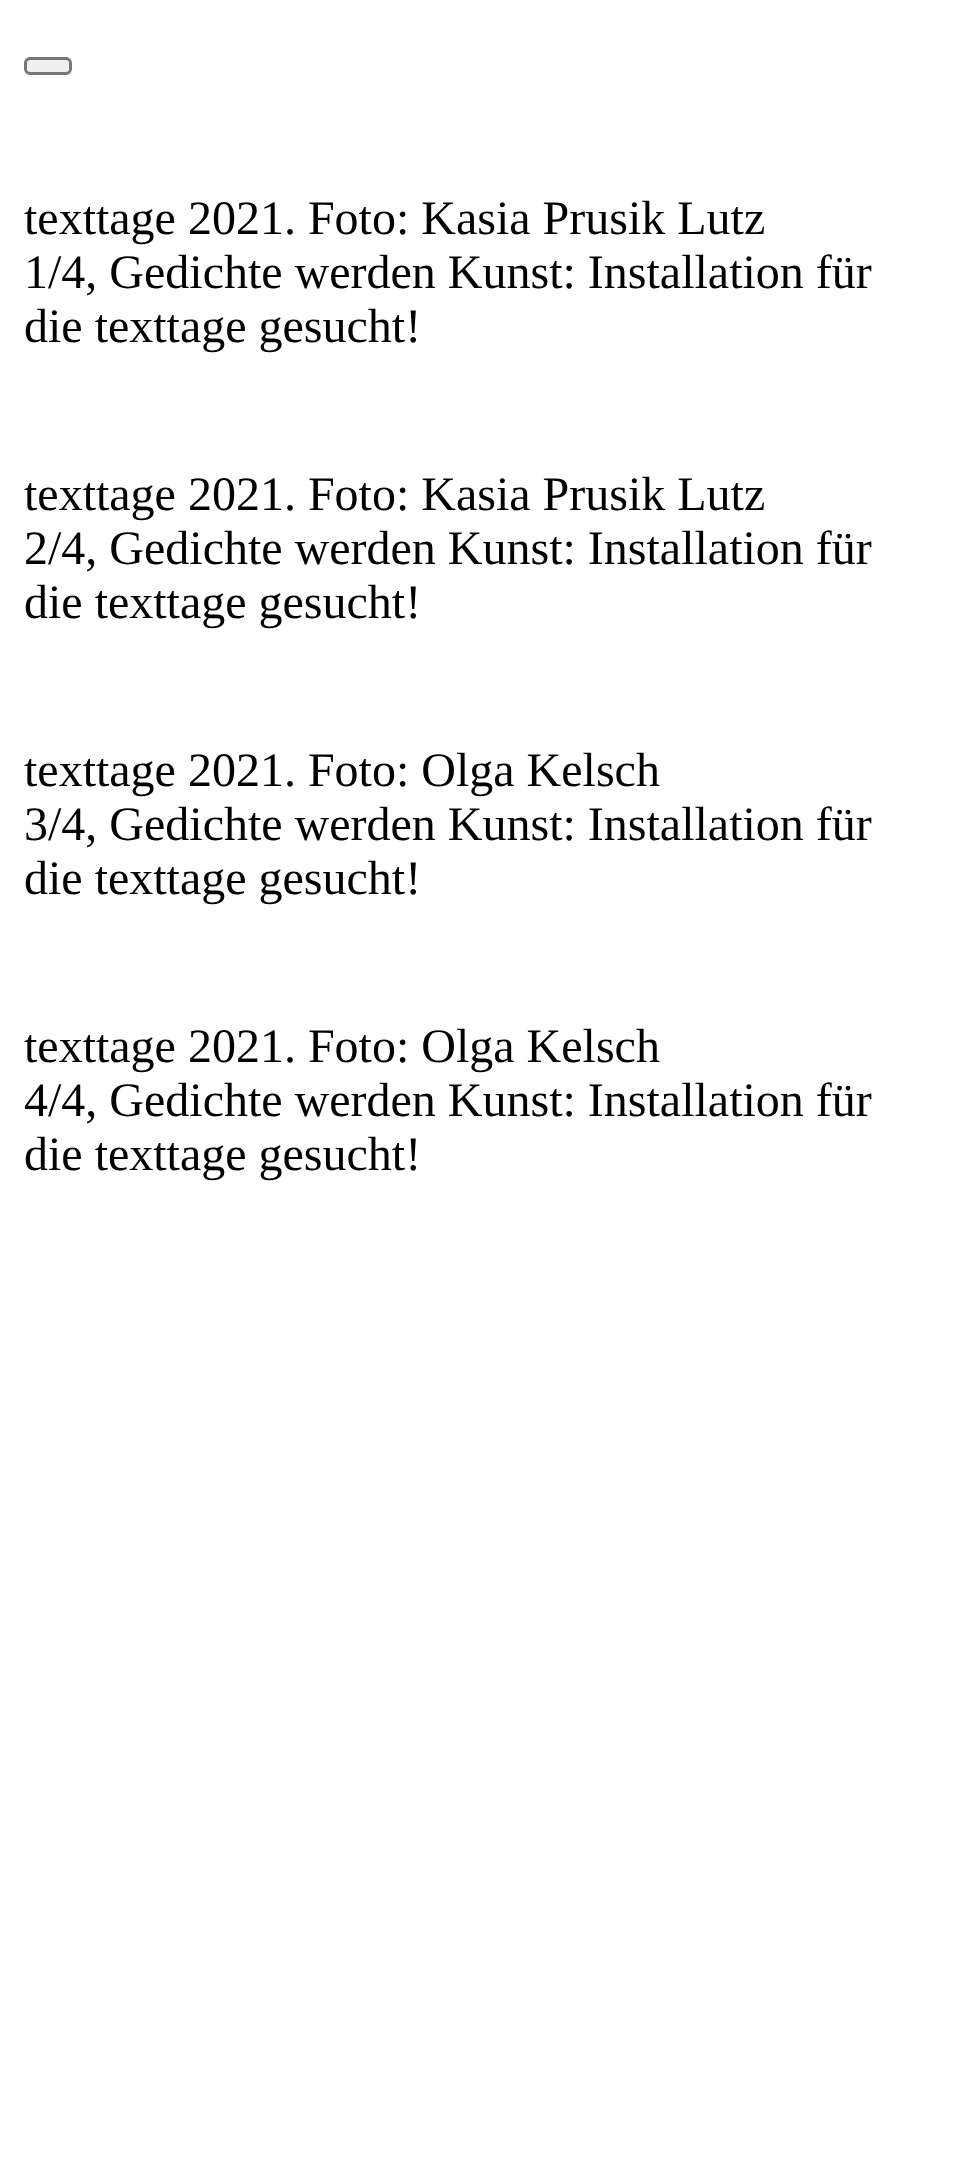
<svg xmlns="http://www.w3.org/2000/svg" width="953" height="2162">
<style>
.a{font:48px Liberation Serif;fill:#000}
</style>
<rect width="100%" height="100%" fill="#fff"/>
<rect fill="#efefef" stroke="#767676" stroke-width="3" x="25.5" y="58.5" width="45" height="15" rx="4.5"/>
<text class="a" x="24" y="234">texttage 2021. Foto: Kasia Prusik Lutz</text>
<text class="a" x="24" y="288">1/4, Gedichte werden Kunst: Installation für</text>
<text class="a" x="24" y="342">die texttage gesucht!</text>
<text class="a" x="24" y="510">texttage 2021. Foto: Kasia Prusik Lutz</text>
<text class="a" x="24" y="564">2/4, Gedichte werden Kunst: Installation für</text>
<text class="a" x="24" y="618">die texttage gesucht!</text>
<text class="a" x="24" y="786">texttage 2021. Foto: Olga Kelsch</text>
<text class="a" x="24" y="840">3/4, Gedichte werden Kunst: Installation für</text>
<text class="a" x="24" y="894">die texttage gesucht!</text>
<text class="a" x="24" y="1062">texttage 2021. Foto: Olga Kelsch</text>
<text class="a" x="24" y="1116">4/4, Gedichte werden Kunst: Installation für</text>
<text class="a" x="24" y="1170">die texttage gesucht!</text>
</svg>
